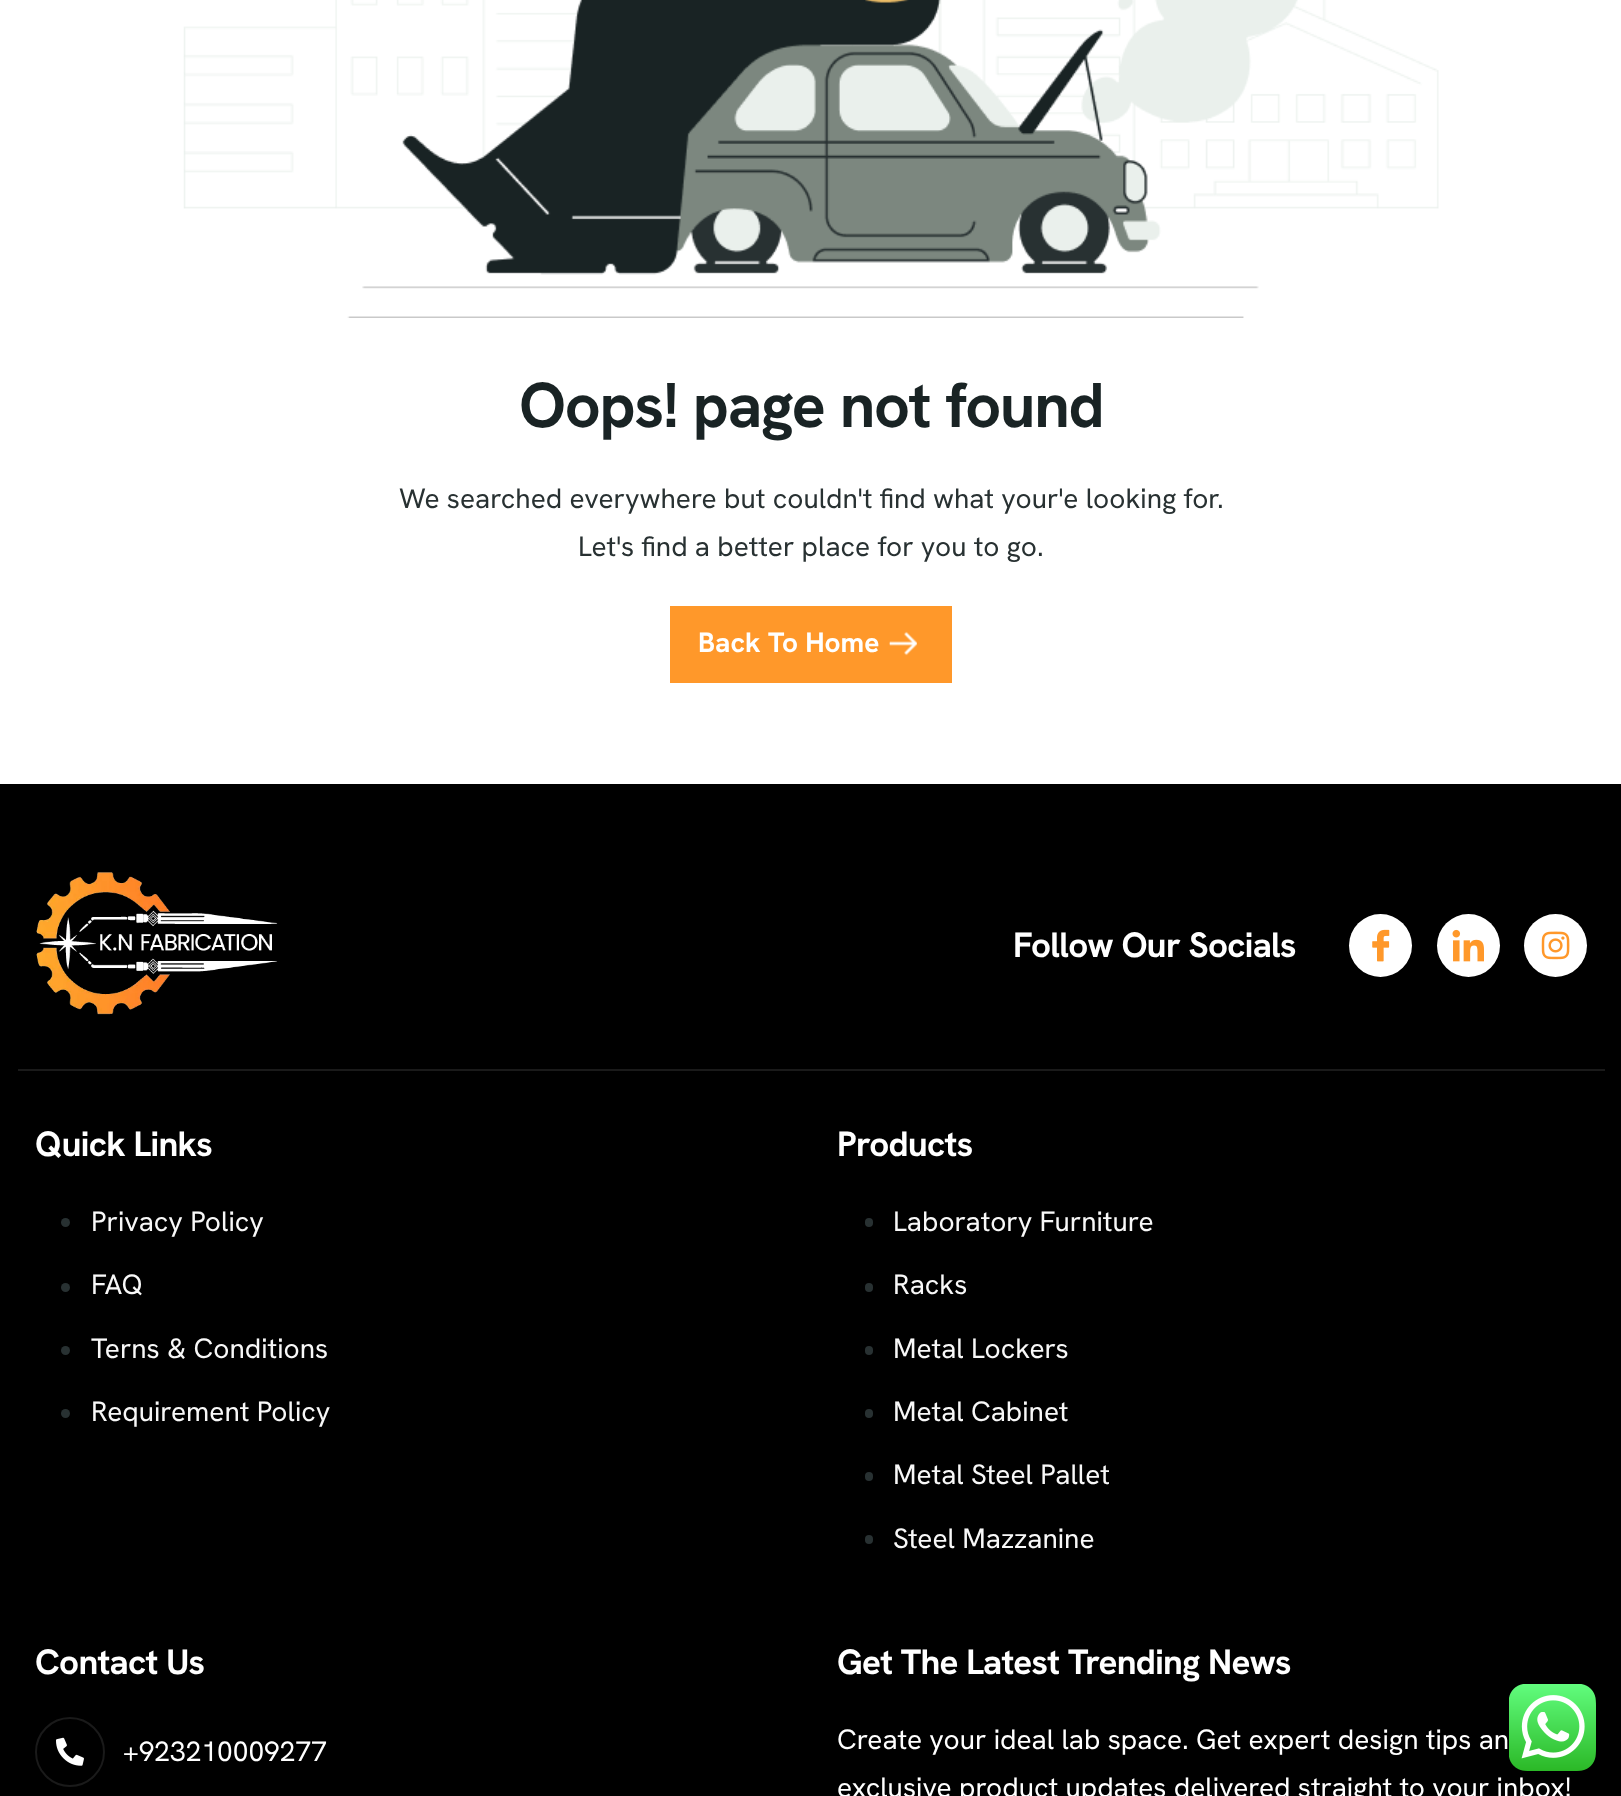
<svg xmlns="http://www.w3.org/2000/svg" width="1621" height="1796">
<style>
.a{font:bold 63px Hanken Grotesk;letter-spacing:-1.25px;fill:#192324}
.b{font:28px Hanken Grotesk;fill:#283132}
.c{font:bold 28px Hanken Grotesk;fill:#fff}
.d{font:bold 35px Hanken Grotesk;letter-spacing:-0.7px;fill:#fff}
.e{font:28px Hanken Grotesk;fill:#f8f8f8}
.f{font:28px Hanken Grotesk;fill:#fff}
</style>
<rect width="100%" height="100%" fill="#fff"/>
<image href="1.png" x="183" y="0" width="1256" height="318"/>
<path fill="#ff982a" d="M670 606h282v77H670z"/>
<image href="2.png" x="889" y="631" width="28" height="25"/>
<path fill="#000" d="M0 784h1621v1012H0z"/>
<path fill="#1a1a1a" d="M18 1069h1587v2H18z"/>
<image href="3.png" x="36" y="872" width="242" height="143"/>
<circle fill="#fff" cx="1380.5" cy="945.5" r="31.5"/>
<image href="4.png" x="1372" y="929" width="18" height="33"/>
<circle fill="#fff" cx="1468.5" cy="945.5" r="31.5"/>
<image href="5.png" x="1452" y="929" width="32" height="33"/>
<circle fill="#fff" cx="1555.5" cy="945.5" r="31.5"/>
<image href="6.png" x="1541" y="931" width="29" height="29"/>
<circle fill="#283132" cx="65.5" cy="1222.5" r="4.5"/>
<circle fill="#283132" cx="65.5" cy="1287.5" r="4.5"/>
<circle fill="#283132" cx="65.5" cy="1350.5" r="4.5"/>
<circle fill="#283132" cx="65.5" cy="1413.5" r="4.5"/>
<rect fill="#283132" x="865" y="1218" width="8" height="9" rx="4"/>
<rect fill="#283132" x="865" y="1283" width="8" height="9" rx="4"/>
<rect fill="#283132" x="865" y="1346" width="8" height="9" rx="4"/>
<rect fill="#283132" x="865" y="1409" width="8" height="9" rx="4"/>
<rect fill="#283132" x="865" y="1472" width="8" height="9" rx="4"/>
<rect fill="#283132" x="865" y="1535" width="8" height="9" rx="4"/>
<circle fill="none" stroke="#1a1a1a" stroke-width="2" cx="70" cy="1752" r="34"/>
<image href="7.png" x="56" y="1737" width="28" height="29"/>
<image href="8.png" x="1509" y="1684" width="87" height="87"/>
<text class="a" x="519" y="427">Oops! page not found</text>
<text class="b" x="399" y="508">We searched everywhere but couldn't find what your'e looking for.</text>
<text class="b" x="578" y="556">Let's find a better place for you to go.</text>
<text class="c" x="698" y="652">Back To Home</text>
<text class="d" x="1013" y="957">Follow Our Socials</text>
<text class="d" x="35" y="1156">Quick Links</text>
<text class="e" x="91" y="1231">Privacy Policy</text>
<text class="e" x="91" y="1294">FAQ</text>
<text class="e" x="91" y="1358">Terns &amp; Conditions</text>
<text class="e" x="91" y="1421">Requirement Policy</text>
<text class="d" x="837" y="1156">Products</text>
<text class="e" x="893" y="1231">Laboratory Furniture</text>
<text class="e" x="893" y="1294">Racks</text>
<text class="e" x="893" y="1358">Metal Lockers</text>
<text class="e" x="893" y="1421">Metal Cabinet</text>
<text class="e" x="893" y="1484">Metal Steel Pallet</text>
<text class="e" x="893" y="1548">Steel Mazzanine</text>
<text class="d" x="35" y="1674">Contact Us</text>
<text class="f" x="123" y="1761">+923210009277</text>
<text class="d" x="837" y="1674">Get The Latest Trending News</text>
<text class="f" x="837" y="1749">Create your ideal lab space. Get expert design tips an</text>
<text class="f" x="837" y="1797">exclusive product updates delivered straight to your inbox!</text>
</svg>
